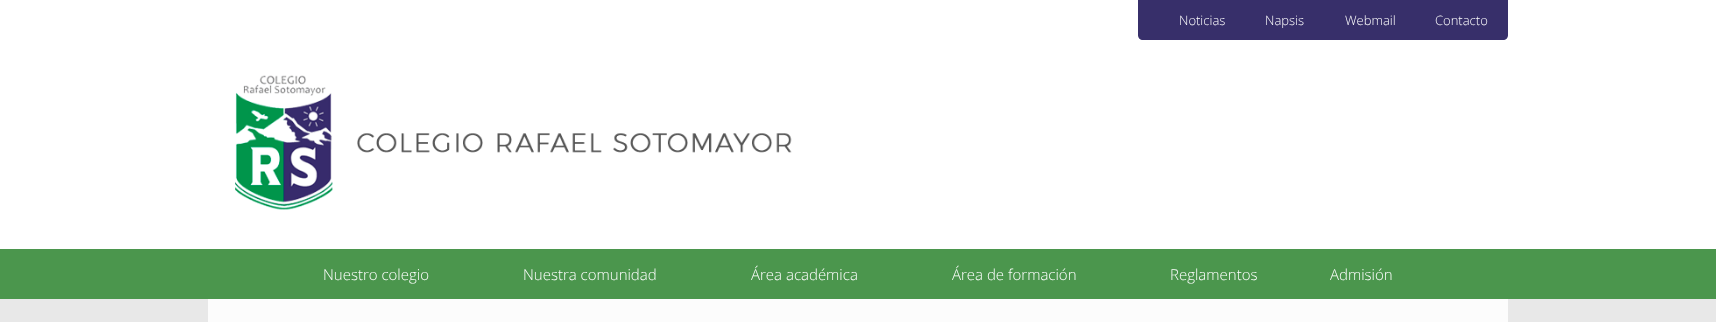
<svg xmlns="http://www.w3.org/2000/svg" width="1716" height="322">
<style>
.a{font:300 13px Open Sans;fill:#fff}
.b{font:300 15px Open Sans;fill:#fff}
</style>
<rect width="100%" height="100%" fill="#e8e8e8"/>
<path fill="#fff" d="M0 0h1716v249H0z"/>
<path fill="#372f6a" d="M1138 0h370v35c0 3-2 5-5 5h-360c-3 0-5-2-5-5z"/>
<image href="1.png" x="235" y="75" width="557" height="135"/>
<path fill="#4b964d" d="M0 249h1716v50H0z"/>
<path fill="#fcfcfc" d="M208 299h1300v23H208z"/>
<text class="a" x="1179" y="25">Noticias</text>
<text class="a" x="1265" y="25">Napsis</text>
<text class="a" x="1345" y="25">Webmail</text>
<text class="a" x="1435" y="25">Contacto</text>
<text class="b" x="323" y="280">Nuestro colegio</text>
<text class="b" x="523" y="280">Nuestra comunidad</text>
<text class="b" x="751" y="280">Área académica</text>
<text class="b" x="952" y="280">Área de formación</text>
<text class="b" x="1170" y="280">Reglamentos</text>
<text class="b" x="1330" y="280">Admisión</text>
</svg>
